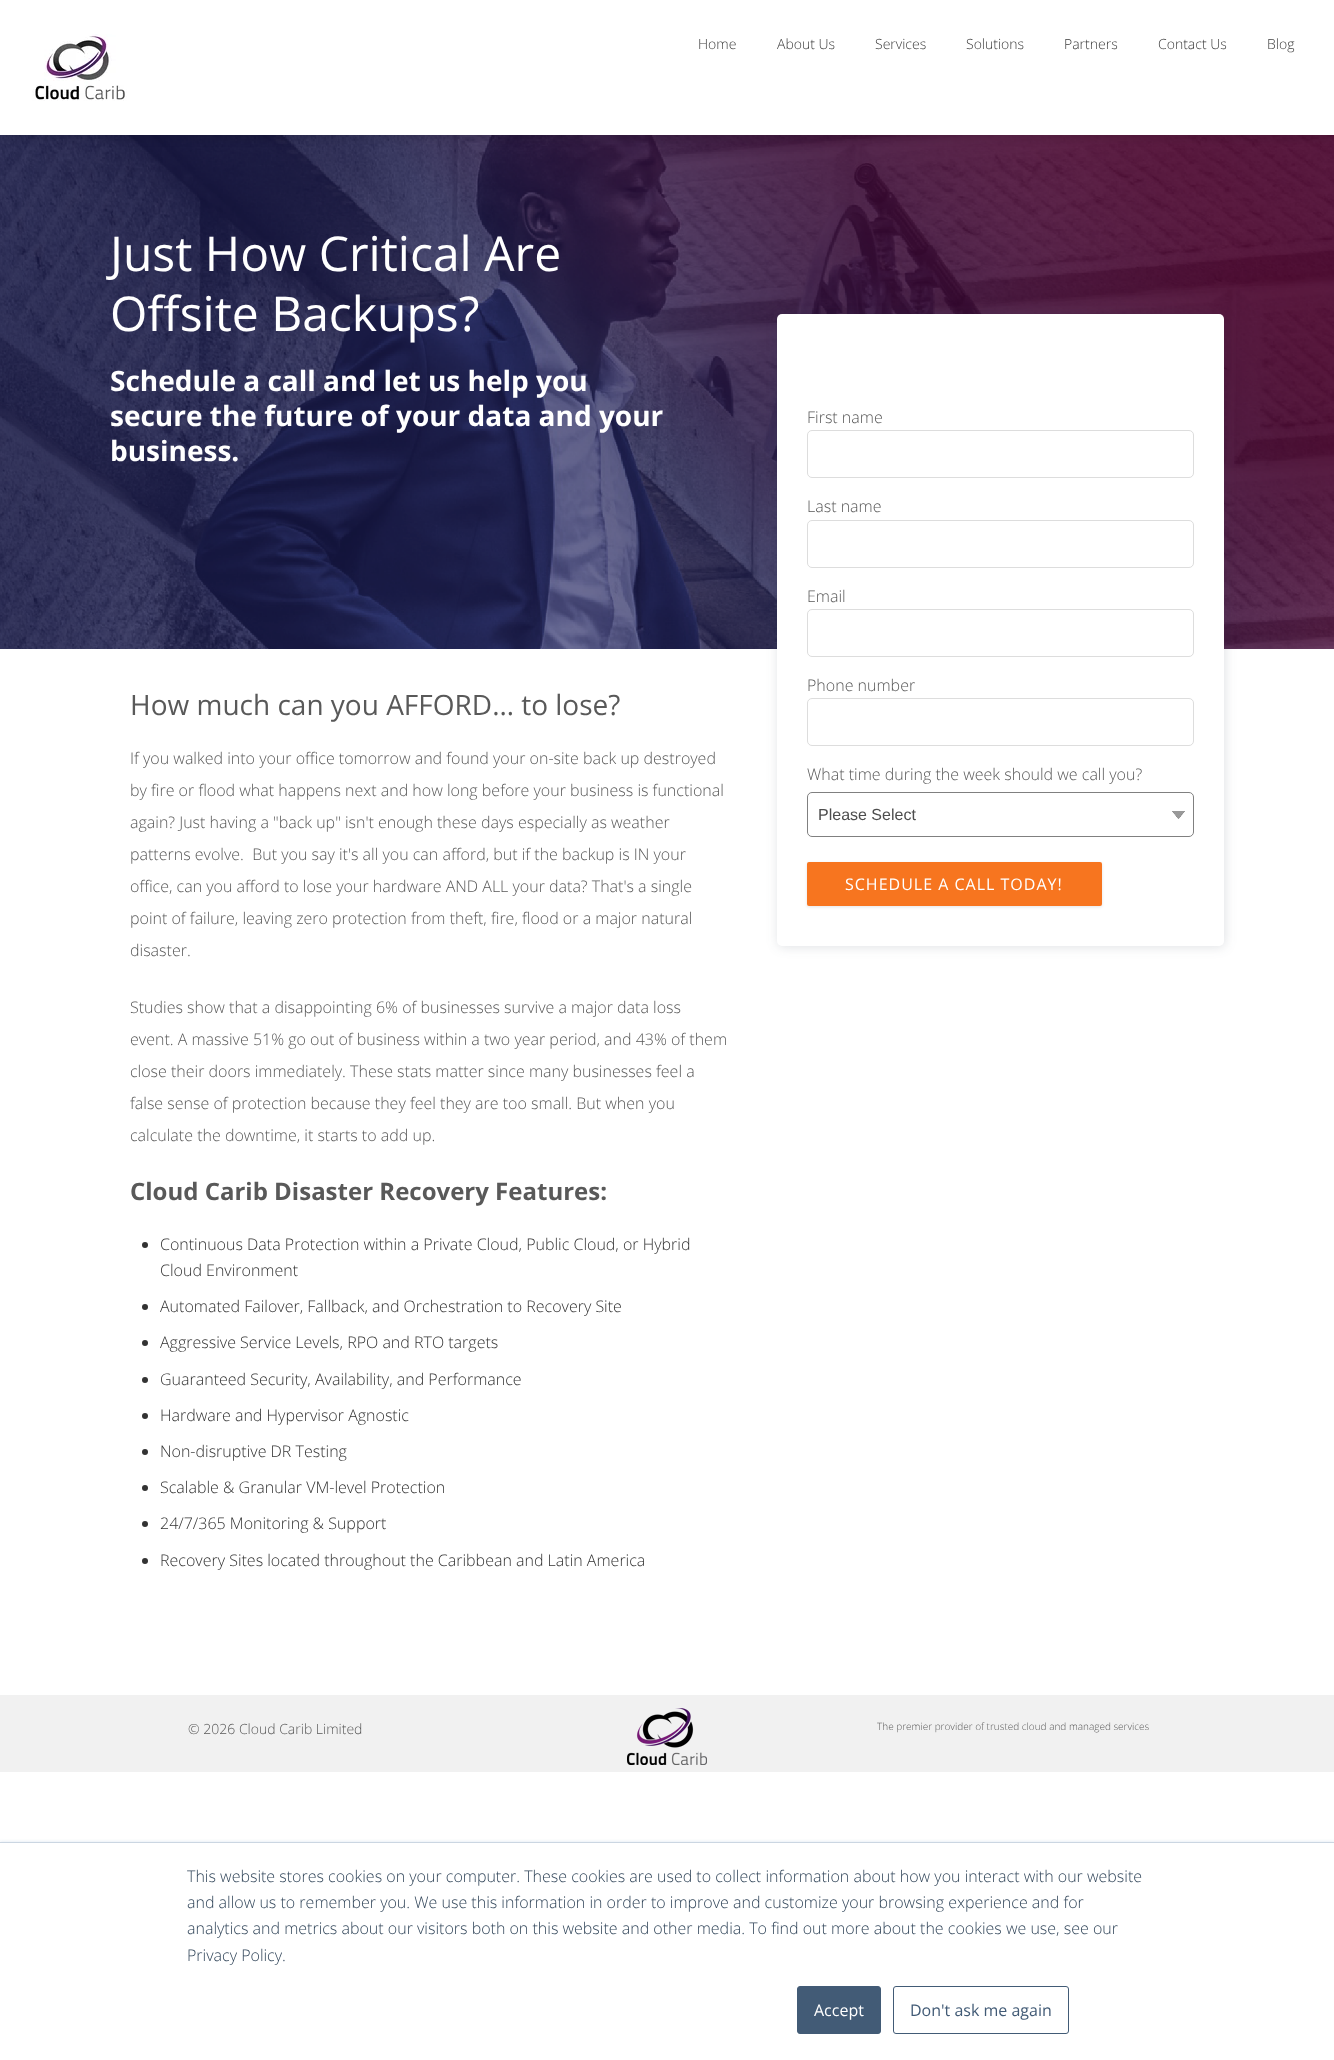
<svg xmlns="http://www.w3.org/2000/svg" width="1334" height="2060">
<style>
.a{font:300 14px Open Sans;fill:#3b3b3b}
.b{font:48px Open Sans;fill:#fff}
.c{font:bold 28px Open Sans;fill:#fff}
.d{font:28px Open Sans;fill:#595959}
.e{font:300 16px Open Sans;fill:#595959}
.f{font:bold 24px Open Sans;fill:#595959}
.g{font:300 16px Open Sans;fill:#333}
.h{font:16px Liberation Sans;fill:#4d4d4d}
.i{font:16px Open Sans;letter-spacing:1px;fill:#fff}
.j{font:300 14px Open Sans;fill:#595959}
.k{font:300 10px Open Sans;fill:#595959}
.l{font:300 16px Open Sans;fill:#33475b}
.m{font:16px Open Sans;fill:#fff}
.n{font:16px Open Sans;fill:#425b76}
</style>
<defs>
<clipPath id="clip1"><path d="M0 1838h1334v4H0z"/></clipPath>
</defs>
<rect width="100%" height="100%" fill="#fff"/>
<image href="1.png" x="0" y="135" width="1334" height="514"/>
<path fill="#00000033" filter="blur(6px)" d="M0 0h1334v135H0z"/>
<path fill="#fff" d="M0 0h1334v135H0z"/>
<image href="2.png" x="32" y="34" width="95" height="67"/>
<circle fill="#333" cx="145" cy="1245" r="3"/>
<circle fill="#333" cx="145" cy="1307" r="3"/>
<circle fill="#333" cx="145" cy="1343" r="3"/>
<circle fill="#333" cx="145" cy="1380" r="3"/>
<circle fill="#333" cx="145" cy="1416" r="3"/>
<circle fill="#333" cx="145" cy="1452" r="3"/>
<circle fill="#333" cx="145" cy="1488" r="3"/>
<circle fill="#333" cx="145" cy="1524" r="3"/>
<circle fill="#333" cx="145" cy="1561" r="3"/>
<rect fill="#27374a26" filter="blur(6px)" x="778" y="315" width="447" height="632" rx="5"/>
<rect fill="#fff" x="777" y="314" width="447" height="632" rx="5"/>
<rect fill="none" stroke="#ddd" x="807.5" y="430.5" width="386" height="47" rx="4.5"/>
<rect fill="none" stroke="#ddd" x="807.5" y="520.5" width="386" height="47" rx="4.5"/>
<rect fill="none" stroke="#ddd" x="807.5" y="609.5" width="386" height="47" rx="4.5"/>
<rect fill="none" stroke="#ddd" x="807.5" y="698.5" width="386" height="47" rx="4.5"/>
<image href="3.png" x="1172" y="811" width="13" height="8"/>
<rect fill="none" stroke="#808080" x="807.5" y="792.5" width="386" height="44" rx="4.5"/>
<rect fill="#0000001a" filter="blur(1.5px)" x="807" y="863" width="295" height="44" rx="2"/>
<rect fill="#f7751f" x="807" y="862" width="295" height="44" rx="2"/>
<path fill="#f1f1f1" d="M0 1695h1334v77H0z"/>
<image href="4.png" x="627" y="1708" width="80" height="57"/>
<g clip-path="url(#clip1)">
<path fill="#eaf0f6" filter="blur(1.5px)" d="M0 1841h1334v218H0z"/>
</g>
<path fill="#cbd6e2" d="M0 1842h1334v1H0z"/>
<rect fill="#425b76" stroke="#425b76" x="797.5" y="1986.5" width="83" height="47" rx="2.5"/>
<rect fill="none" stroke="#425b76" x="893.5" y="1986.5" width="175" height="47" rx="2.5"/>
<text class="a" x="698" y="49">Home</text>
<text class="a" x="777" y="49">About Us</text>
<text class="a" x="875" y="49">Services</text>
<text class="a" x="966" y="49">Solutions</text>
<text class="a" x="1064" y="49">Partners</text>
<text class="a" x="1158" y="49">Contact Us</text>
<text class="a" x="1267" y="49">Blog</text>
<text class="b" x="110" y="271">Just How Critical Are</text>
<text class="b" x="110" y="331">Offsite Backups?</text>
<text class="c" x="110" y="391">Schedule a call and let us help you</text>
<text class="c" x="110" y="426">secure the future of your data and your</text>
<text class="c" x="110" y="461">business.</text>
<text class="d" x="130" y="715">How much can you AFFORD… to lose?</text>
<text class="e" x="130" y="764">If you walked into your office tomorrow and found your on-site back up destroyed</text>
<text class="e" x="130" y="796">by fire or flood what happens next and how long before your business is functional</text>
<text class="e" x="130" y="828">again? Just having a "back up" isn't enough these days especially as weather</text>
<text class="e" xml:space="preserve" x="130" y="860">patterns evolve.  But you say it's all you can afford, but if the backup is IN your</text>
<text class="e" x="130" y="892">office, can you afford to lose your hardware AND ALL your data? That's a single</text>
<text class="e" x="130" y="924">point of failure, leaving zero protection from theft, fire, flood or a major natural</text>
<text class="e" x="130" y="956">disaster.</text>
<text class="e" x="130" y="1013">Studies show that a disappointing 6% of businesses survive a major data loss</text>
<text class="e" x="130" y="1045">event. A massive 51% go out of business within a two year period, and 43% of them</text>
<text class="e" x="130" y="1077">close their doors immediately. These stats matter since many businesses feel a</text>
<text class="e" x="130" y="1109">false sense of protection because they feel they are too small. But when you</text>
<text class="e" x="130" y="1141">calculate the downtime, it starts to add up.</text>
<text class="f" x="130" y="1200">Cloud Carib Disaster Recovery Features:</text>
<text class="g" x="160" y="1250">Continuous Data Protection within a Private Cloud, Public Cloud, or Hybrid</text>
<text class="g" x="160" y="1276">Cloud Environment</text>
<text class="g" x="160" y="1312">Automated Failover, Fallback, and Orchestration to Recovery Site</text>
<text class="g" x="160" y="1348">Aggressive Service Levels, RPO and RTO targets</text>
<text class="g" x="160" y="1385">Guaranteed Security, Availability, and Performance</text>
<text class="g" x="160" y="1421">Hardware and Hypervisor Agnostic</text>
<text class="g" x="160" y="1457">Non-disruptive DR Testing</text>
<text class="g" x="160" y="1493">Scalable &amp; Granular VM-level Protection</text>
<text class="g" x="160" y="1529">24/7/365 Monitoring &amp; Support</text>
<text class="g" x="160" y="1566">Recovery Sites located throughout the Caribbean and Latin America</text>
<text class="e" x="807" y="423">First name</text>
<text class="e" x="807" y="512">Last name</text>
<text class="e" x="807" y="602">Email</text>
<text class="e" x="807" y="691">Phone number</text>
<text class="e" x="807" y="780">What time during the week should we call you?</text>
<text class="h" x="818" y="820">Please Select</text>
<text class="i" x="845" y="890">SCHEDULE A CALL TODAY!</text>
<text class="j" x="188" y="1734">© 2026 Cloud Carib Limited</text>
<text class="k" x="877" y="1730">The premier provider of trusted cloud and managed services</text>
<text class="l" x="187" y="1882">This website stores cookies on your computer. These cookies are used to collect information about how you interact with our website</text>
<text class="l" x="187" y="1908">and allow us to remember you. We use this information in order to improve and customize your browsing experience and for</text>
<text class="l" x="187" y="1934">analytics and metrics about our visitors both on this website and other media. To find out more about the cookies we use, see our</text>
<text class="l" x="187" y="1961">Privacy Policy.</text>
<text class="m" x="814" y="2016">Accept</text>
<text class="n" x="910" y="2016">Don't ask me again</text>
</svg>
